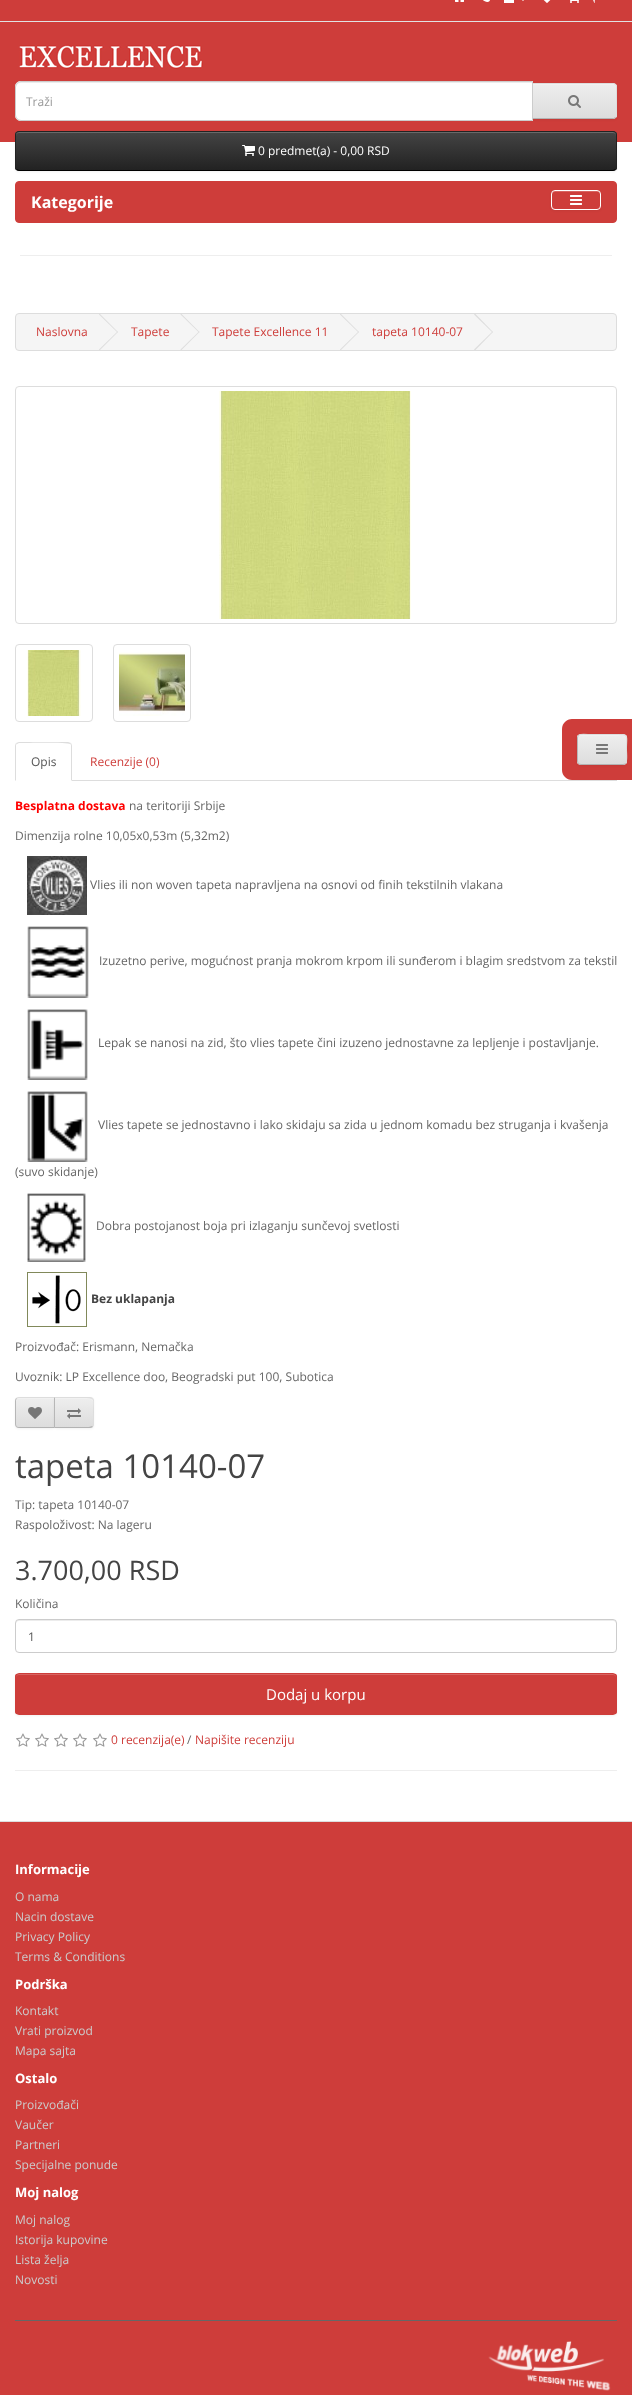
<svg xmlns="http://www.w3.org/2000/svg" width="632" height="2395">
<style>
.a{font:12px Open Sans;fill:#999}
.b{font:12px Open Sans;fill:#fff}
.c{font:bold 16px Open Sans;fill:#fff}
.d{font:12px Open Sans;fill:#ce3d3a}
.e{font:12px Open Sans;fill:#555}
.f{font:bold 12px Open Sans;fill:#f00}
.g{font:12px Open Sans;fill:#666}
.h{font:bold 12px Open Sans;fill:#444}
.i{font:33px Open Sans;fill:#444}
.j{font:27px Open Sans;fill:#444}
.k{font:15px Open Sans;fill:#fff}
.l{font:bold 13px Open Sans;fill:#fff}
.m{font:12px Open Sans;fill:#ccc}
</style>
<defs>
<clipPath id="clip1"><path d="M532 83h81c2 0 4 2 4 4v28c0 2-2 4-4 4h-81z"/></clipPath>
<linearGradient id="g1" gradientUnits="userSpaceOnUse" x1="575" y1="84" x2="575" y2="118"><stop offset="0" stop-color="#eee"/><stop offset="1" stop-color="#ddd"/></linearGradient>
<clipPath id="clip2"><rect x="15" y="131" width="602" height="40" rx="4"/></clipPath>
<linearGradient id="g2" gradientUnits="userSpaceOnUse" x1="316" y1="132" x2="316" y2="170"><stop offset="0" stop-color="#444"/><stop offset="1" stop-color="#222"/></linearGradient>
<clipPath id="clip3"><path d="M19 1397h36v31h-36c-2 0-4-2-4-4v-23c0-2 2-4 4-4z"/></clipPath>
<linearGradient id="g3" gradientUnits="userSpaceOnUse" x1="35" y1="1398" x2="35" y2="1427"><stop offset="0" stop-color="#eee"/><stop offset="1" stop-color="#ddd"/></linearGradient>
<clipPath id="clip4"><path d="M54 1397h36c2 0 4 2 4 4v23c0 2-2 4-4 4h-36z"/></clipPath>
<linearGradient id="g4" gradientUnits="userSpaceOnUse" x1="74" y1="1398" x2="74" y2="1427"><stop offset="0" stop-color="#eee"/><stop offset="1" stop-color="#ddd"/></linearGradient>
<clipPath id="clip5"><rect x="15" y="1673" width="602" height="42" rx="4"/></clipPath>
<clipPath id="clip6"><rect x="577" y="734" width="50" height="31" rx="4"/></clipPath>
<linearGradient id="g5" gradientUnits="userSpaceOnUse" x1="602" y1="735" x2="602" y2="764"><stop offset="0" stop-color="#eee"/><stop offset="1" stop-color="#ddd"/></linearGradient>
</defs>
<rect width="100%" height="100%" fill="#fff"/>
<path fill="#ce3d3a" d="M0 0h632v21H0z"/>
<path fill="#e2e2e2" d="M0 21h632v1H0z"/>
<image href="1.png" x="455" y="0" width="9" height="2"/>
<image href="2.png" x="483" y="0" width="7" height="2"/>
<path fill="#fff" d="M504 0h10v3H504z"/>
<path fill="#fff" d="M519-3h8l-4 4z"/>
<image href="3.png" x="543" y="0" width="8" height="3"/>
<image href="4.png" x="570" y="0" width="9" height="3"/>
<image href="5.png" x="593" y="0" width="2" height="3"/>
<path fill="#ce3d3a" d="M0 22h632v120H0z"/>
<image href="6.png" x="19" y="44" width="184" height="26"/>
<rect fill="#0000000d" filter="blur(1px)" x="532" y="84" width="85" height="36" rx="4"/>
<path fill="#e7e7e7" d="M532 83h81c2 0 4 2 4 4v28c0 2-2 4-4 4h-81z"/>
<g clip-path="url(#clip1)">
<path fill="url(#g1)" d="M533 84h84v34H533z"/>
</g>
<path fill="#f1f1f1" d="M533 85h80c2 0 3 1 3 3v-1c0-2-1-3-3-3h-80z"/>
<path fill="#ddd" d="M532 83l1 1h81l1 1l1-1l-3-1z"/>
<path fill="#ddd" d="M617 115v-28c0-1-.5-2-1-3l-1 1c1 0 1 1 1 2v28c0 1 0 2-1 2l1 1c.5-1 1-2 1-3z"/>
<path fill="#b3b3b3" d="M613 119l3-1l-1-1l-1 1h-81l-1 1z"/>
<path fill="#fff" d="M21 81h512v40h-512c-3.5 0-6-2.5-6-6v-28c0-3.5 2.5-6 6-6z"/>
<path fill="#ececec" d="M21 83h511v-1h-511c-3 0-5 2-5 5v1c0-3 2-5 5-5z"/>
<path fill="none" stroke="#ccc" d="M21 81.5h511.5v39h-511.5c-3 0-5.5-2.5-5.5-5.5v-28c0-3 2.5-5.5 5.5-5.5z"/>
<image href="7.png" x="568" y="95" width="13" height="13"/>
<rect fill="#0000000d" filter="blur(1px)" x="15" y="132" width="602" height="40" rx="4"/>
<rect fill="#363636" x="15" y="131" width="602" height="40" rx="4"/>
<g clip-path="url(#clip2)">
<path fill="url(#g2)" d="M15 132h602v38H15z"/>
</g>
<path fill="#696969" d="M19 133h594c2 0 3 1 3 3v-1c0-2-1-3-3-3h-594c-2 0-3 1-3 3v1c0-2 1-3 3-3z"/>
<path fill="none" stroke="#000" d="M615.5 169.5l-2.5 1h-594l-2.5-1"/>
<path fill="none" stroke="#222" d="M16.5 169.5c-.5-.5-1-1.5-1-2.5v-32c0-1 .5-2 1-2.5c.5-.5 1.5-1 2.5-1h594c1 0 2 .5 2.5 1c.5 .5 1 1.5 1 2.5v32c0 1-.5 2-1 2.5"/>
<image href="8.png" x="242" y="145" width="13" height="11"/>
<rect fill="#ce3d3a" stroke="#ce3d3a" x="15.5" y="181.5" width="601" height="41" rx="3.5"/>
<rect fill="#0000000d" filter="blur(1px)" x="551" y="191" width="50" height="20" rx="4"/>
<rect fill="#ce3d3a" x="551" y="190" width="50" height="20" rx="4"/>
<path fill="#d86461" d="M555 192h43c1 0 2 1 2 2c0-5-7-3-10-3h-28c-5 0-10-2-10 4c0-2 1-3 3-3z"/>
<rect fill="none" stroke="#fff" x="551.5" y="190.5" width="49" height="19" rx="3.5"/>
<image href="9.png" x="570" y="195" width="12" height="10"/>
<path fill="#eee" d="M20 255h592v1H20z"/>
<rect fill="#f5f5f5" stroke="#ddd" x="15.5" y="313.5" width="601" height="37" rx="3.5"/>
<path fill="#ddd" d="M99 314.5l.5-1l18.5 18.5l-.5 .5z"/>
<path fill="#ddd" d="M99 349.5l18.5-18l.5 .5l-18.5 18.5z"/>
<path fill="#ddd" d="M180.5 314.5l.5-1l18.5 18.5l-.5 .5z"/>
<path fill="#ddd" d="M180.5 349.5l18.5-18l.5 .5l-18.5 18.5z"/>
<path fill="#ddd" d="M340 314.5l.5-1l18.5 18.5l-.5 .5z"/>
<path fill="#ddd" d="M340 349.5l18.5-18l.5 .5l-18.5 18.5z"/>
<path fill="#ddd" d="M474 314.5l1-1l18 18.5l-.5 .5z"/>
<path fill="#ddd" d="M474 349.5l18.5-18l.5 .5l-18 18.5z"/>
<rect fill="none" stroke="#ddd" x="15.5" y="386.5" width="601" height="237" rx="3.5"/>
<image href="10.png" x="219" y="391" width="192" height="228"/>
<rect fill="none" stroke="#ddd" x="15.5" y="644.5" width="77" height="77" rx="3.5"/>
<image href="11.png" x="27" y="650" width="54" height="66"/>
<rect fill="none" stroke="#ddd" x="113.5" y="644.5" width="77" height="77" rx="3.5"/>
<image href="12.png" x="119" y="652" width="66" height="64"/>
<path fill="#ddd" d="M72 780h545v1H72z"/>
<path fill="#ddd" d="M19 742l-3 1l1 1l2-1c6 0 49-1 51 1l1-1l-3-1z"/>
<path fill="#ddd" d="M72 781v-35c0-1-.5-2-1-3l-1 1c1 0 1 1 1 2v34zm-57 0l1-1v-34c0-1 0-2 1-2l-1-1c-.5 1-1 2-1 3z"/>
<image href="13.png" x="27" y="856" width="60" height="59"/>
<image href="14.png" x="27" y="926" width="62" height="72"/>
<image href="15.png" x="27" y="1009" width="61" height="71"/>
<image href="16.png" x="27" y="1091" width="61" height="71"/>
<image href="17.png" x="27" y="1193" width="59" height="69"/>
<image href="18.png" x="27" y="1272" width="60" height="55"/>
<rect fill="#0000000d" filter="blur(1px)" x="15" y="1398" width="40" height="31" rx="4"/>
<g clip-path="url(#clip3)">
<path fill="url(#g3)" d="M15 1398h39v29H15z"/>
</g>
<path fill="#f1f1f1" d="M19 1399h35v-1h-35c-1.5 0-3 1.5-3 3v1c0-2 1-3 3-3z"/>
<path fill="#ddd" d="M19 1397c-1 0-2 .5-3 1l1 1c0-1 1-1 2-1h35l1-1z"/>
<path fill="#b3b3b3" d="M55 1428l-1-1h-35c-1 0-2 0-2-1l-1 1c1 .5 2 1 3 1z"/>
<path fill="#b7b7b7" d="M15 1401v23c0 1 .5 2 1 3l1-1c-1 0-1-1-1-2v-23c0-1 0-2 1-2l-1-1c-.5 1-1 2-1 3z"/>
<image href="19.png" x="28" y="1407" width="14" height="12"/>
<rect fill="#0000000d" filter="blur(1px)" x="54" y="1398" width="40" height="31" rx="4"/>
<g clip-path="url(#clip4)">
<path fill="url(#g4)" d="M55 1398h39v29H55z"/>
</g>
<path fill="#f1f1f1" d="M55 1399h29c6 0 8 .5 9 2.5v-.5c0-1.5-1.5-3-3-3h-35z"/>
<path fill="#ddd" d="M54 1397l1 1h29c4 0 6.5 0 8 1l1-1c-1-.5-2-1-3-1z"/>
<path fill="#ddd" d="M94 1424v-23c0-1-.5-2-1-3l-1 1c1 .5 1 1.5 1.5 2.5l-.5 10.5l.5 11.5c-.5 1-.5 2-1.5 2.5l1 1c.5-1 1-2 1-3z"/>
<path fill="#b3b3b3" d="M90 1428c1 0 2-.5 3-1l-1-1c-1.5 1-4 1-8 1h-29l-1 1z"/>
<path fill="#b7b7b7" d="M54 1397v31l1-1v-29z"/>
<image href="20.png" x="67" y="1408" width="14" height="11"/>
<path fill="#ececec" d="M19 1621h594c2 0 3 1 3 3v-1c0-2-1-3-3-3h-594c-2 0-3 1-3 3v1c0-2 1-3 3-3z"/>
<rect fill="none" stroke="#ccc" x="15.5" y="1619.5" width="601" height="33" rx="3.5"/>
<rect fill="#0000000d" filter="blur(1px)" x="15" y="1674" width="602" height="42" rx="4"/>
<g clip-path="url(#clip5)">
<path fill="#ce3d3a" d="M15 1674h602v40H15z"/>
</g>
<path fill="#d86461" d="M19 1675h594c2 0 3 1 3 3v-1c0-2-1-3-3-3h-594c-2 0-3 1-3 3v1c0-2 1-3 3-3z"/>
<rect fill="none" stroke="#ce3d3a" x="15.5" y="1673.5" width="601" height="41" rx="3.5"/>
<image href="21.png" x="16" y="1733" width="14" height="14"/>
<image href="21.png" x="35" y="1733" width="14" height="14"/>
<image href="21.png" x="54" y="1733" width="14" height="14"/>
<image href="21.png" x="73" y="1733" width="14" height="14"/>
<image href="21.png" x="93" y="1733" width="14" height="14"/>
<path fill="#eee" d="M15 1770h602v1H15z"/>
<path fill="#ce3d3a" d="M0 1822h632v573H0z"/>
<path fill="#ddd" d="M0 1821h632v1H0z"/>
<path fill="#666" d="M15 2320h602v1H15z"/>
<image href="22.png" x="488" y="2341" width="123" height="50"/>
<path fill="#ce3d3a" d="M572 719h60v61h-60c-5.5 0-10-4.5-10-10v-41c0-5.5 4.5-10 10-10z"/>
<rect fill="#0000000d" filter="blur(1px)" x="577" y="735" width="50" height="31" rx="4"/>
<rect fill="#e7e7e7" x="577" y="734" width="50" height="31" rx="4"/>
<g clip-path="url(#clip6)">
<path fill="url(#g5)" d="M577 735h50v29H577z"/>
</g>
<path fill="#f1f1f1" fill-rule="evenodd" d="M581 736h28c10 0 14-1 16 1c1 1 1 2 1 3c0-7-3-5-10-5h-28c-2 0-10-2-10 3c0-1 1-2 3-2zm-3 26v-8z"/>
<path fill="none" stroke="#ddd" d="M578.5 735.5c2-2 8-1 9.5-1h28c13.5 0 10.5 .5 10.5 15c0 3 1 11.5-1 14"/>
<path fill="none" stroke="#b3b3b3" d="M625.5 763.5c-.5 .5-1.5 1-2.5 1h-42c-1 0-2-.5-2.5-1"/>
<path fill="none" stroke="#b7b7b7" d="M578.5 763.5c-.5-.5-1-1.5-1-2.5v-23c0-1 .5-2 1-2.5"/>
<image href="23.png" x="596" y="744" width="12" height="10"/>
<text class="a" x="26" y="106">Traži</text>
<text class="b" x="258" y="155">0 predmet(a) - 0,00 RSD</text>
<text class="c" x="31" y="208">Kategorije</text>
<text class="d" x="36" y="336">Naslovna</text>
<text class="d" x="131" y="336">Tapete</text>
<text class="d" x="212" y="336">Tapete Excellence 11</text>
<text class="d" x="372" y="336">tapeta 10140-07</text>
<text class="e" x="31" y="766">Opis</text>
<text class="d" x="90" y="766">Recenzije (0)</text>
<text class="f" x="15" y="810">Besplatna dostava</text>
<text class="g" x="129" y="810">na teritoriji Srbije</text>
<text class="g" x="15" y="840">Dimenzija rolne 10,05x0,53m (5,32m2)</text>
<text class="g" x="90" y="889">Vlies ili non woven tapeta napravljena na osnovi od finih tekstilnih vlakana</text>
<text class="g" x="99" y="965">Izuzetno perive, mogućnost pranja mokrom krpom ili sunđerom i blagim sredstvom za tekstil</text>
<text class="g" x="98" y="1047">Lepak se nanosi na zid, što vlies tapete čini izuzeno jednostavne za lepljenje i postavljanje.</text>
<text class="g" x="98" y="1129">Vlies tapete se jednostavno i lako skidaju sa zida u jednom komadu bez struganja i kvašenja</text>
<text class="g" x="15" y="1176">(suvo skidanje)</text>
<text class="g" x="96" y="1230">Dobra postojanost boja pri izlaganju sunčevoj svetlosti</text>
<text class="h" x="91" y="1303">Bez uklapanja</text>
<text class="g" x="15" y="1351">Proizvođač: Erismann, Nemačka</text>
<text class="g" x="15" y="1381">Uvoznik: LP Excellence doo, Beogradski put 100, Subotica</text>
<text class="i" x="15" y="1478">tapeta 10140-07</text>
<text class="g" x="15" y="1509">Tip: tapeta 10140-07</text>
<text class="g" x="15" y="1529">Raspoloživost: Na lageru</text>
<text class="j" x="15" y="1580">3.700,00 RSD</text>
<text class="g" x="15" y="1608">Količina</text>
<text class="e" x="28" y="1641">1</text>
<text class="k" x="266" y="1700">Dodaj u korpu</text>
<text class="d" x="111" y="1744">0 recenzija(e)</text>
<text class="g" x="187" y="1744">/</text>
<text class="d" x="195" y="1744">Napišite recenziju</text>
<text class="l" x="15" y="1874">Informacije</text>
<text class="m" x="15" y="1901">O nama</text>
<text class="m" x="15" y="1921">Nacin dostave</text>
<text class="m" x="15" y="1941">Privacy Policy</text>
<text class="m" x="15" y="1961">Terms &amp; Conditions</text>
<text class="l" x="15" y="1989">Podrška</text>
<text class="m" x="15" y="2015">Kontakt</text>
<text class="m" x="15" y="2035">Vrati proizvod</text>
<text class="m" x="15" y="2055">Mapa sajta</text>
<text class="l" x="15" y="2083">Ostalo</text>
<text class="m" x="15" y="2109">Proizvođači</text>
<text class="m" x="15" y="2129">Vaučer</text>
<text class="m" x="15" y="2149">Partneri</text>
<text class="m" x="15" y="2169">Specijalne ponude</text>
<text class="l" x="15" y="2197">Moj nalog</text>
<text class="m" x="15" y="2224">Moj nalog</text>
<text class="m" x="15" y="2244">Istorija kupovine</text>
<text class="m" x="15" y="2264">Lista želja</text>
<text class="m" x="15" y="2284">Novosti</text>
</svg>
